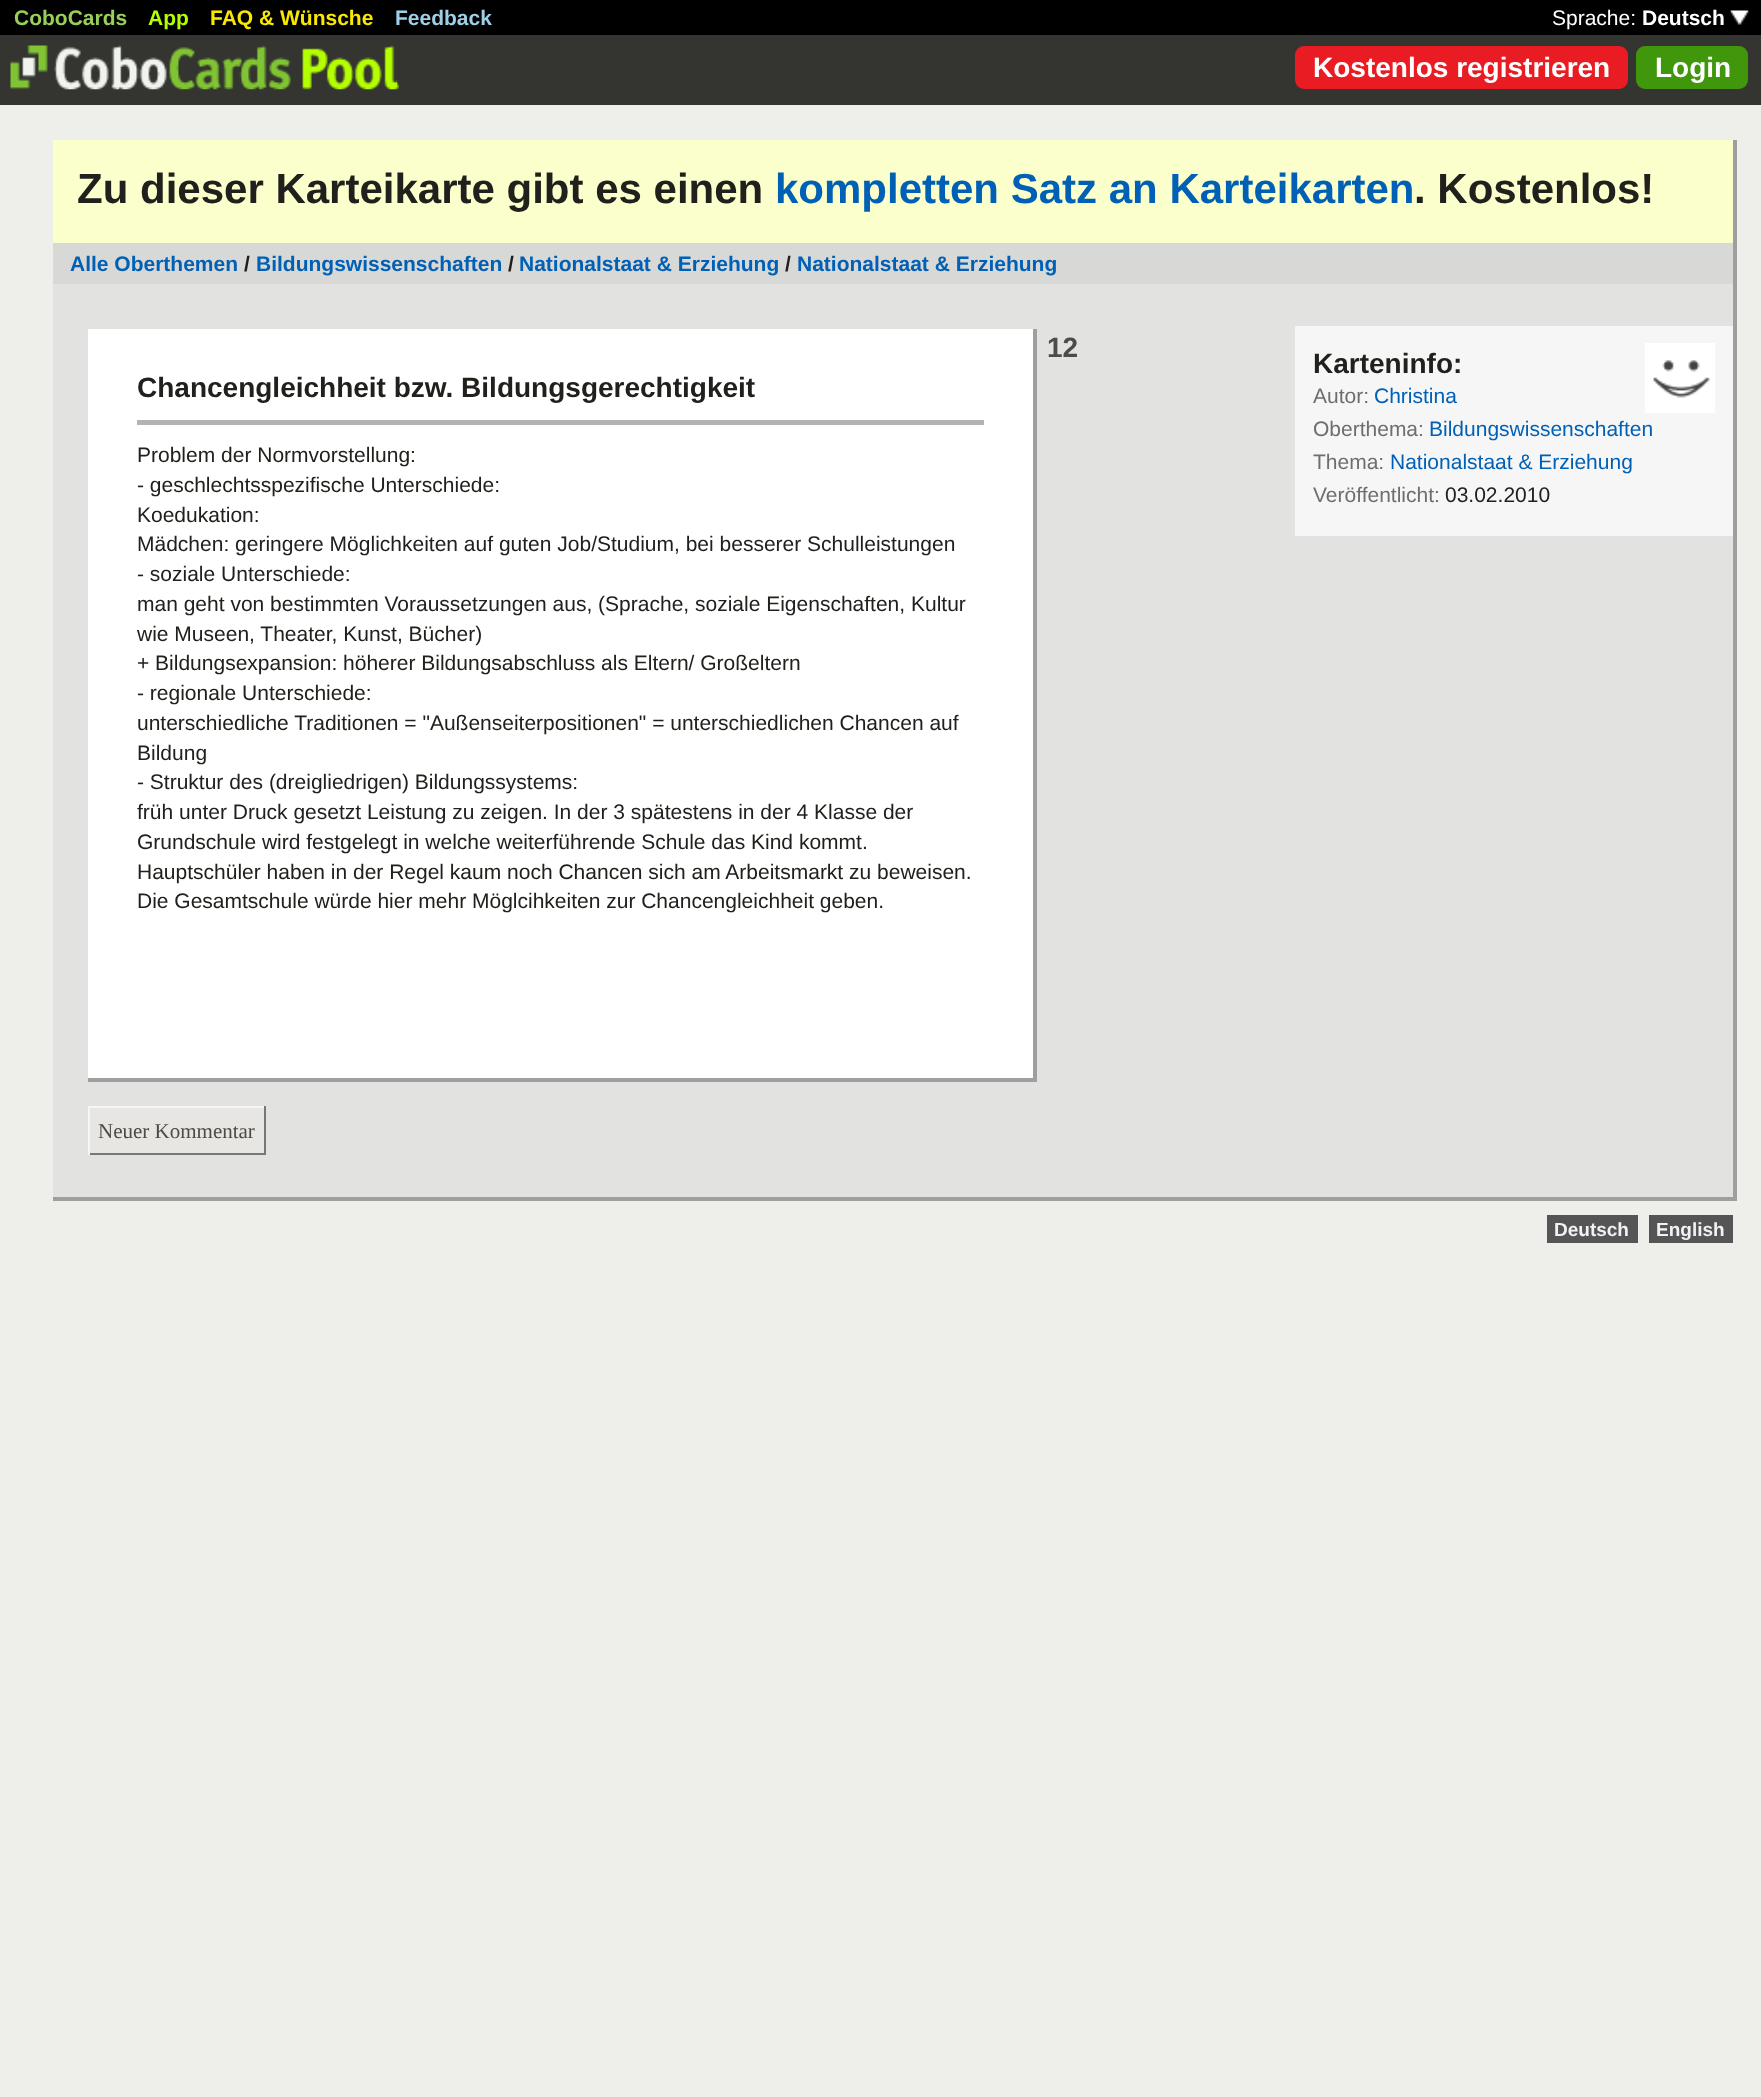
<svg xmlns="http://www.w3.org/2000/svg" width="1761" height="2097">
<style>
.a{font:bold 21px Liberation Sans;fill:#97cf58}
.b{font:bold 21px Liberation Sans;fill:#b4ff00}
.c{font:bold 21px Liberation Sans;fill:#f9e800}
.d{font:bold 21px Liberation Sans;fill:#9fcfe7}
.e{font:21px Liberation Sans;fill:#fff}
.f{font:bold 21px Liberation Sans;fill:#fff}
.g{font:bold 28px Liberation Sans;fill:#fff}
.h{font:bold 42px Liberation Sans;fill:#21201c}
.i{font:bold 42px Liberation Sans;fill:#0060b6}
.j{font:bold 21px Liberation Sans;fill:#0060b6}
.k{font:bold 21px Liberation Sans;fill:#21201c}
.l{font:bold 28px Liberation Sans;fill:#4b4c49}
.m{font:bold 28px Liberation Sans;fill:#21201c}
.n{font:21px Liberation Sans;fill:#21201c}
.o{font:21px Liberation Serif;fill:#4b4c49}
.p{font:21px Liberation Sans;fill:#6d6f6c}
.q{font:21px Liberation Sans;fill:#0060b6}
.r{font:bold 19px Liberation Sans;fill:#f2f2f2}
</style>
<rect width="100%" height="100%" fill="#eeefeb"/>
<path fill="#343530" d="M0 35h1761v70H0z"/>
<path fill="#000" d="M0 0h1761v35H0z"/>
<image href="1.png" x="1730" y="10" width="19" height="15"/>
<image href="2.png" x="10" y="45" width="389" height="45"/>
<rect fill="#e91c24" x="1295" y="46" width="333" height="43" rx="9"/>
<rect fill="#40970b" x="1636" y="46" width="112" height="43" rx="9"/>
<path fill="#e2e3e0" d="M53 284h1680v913H53z"/>
<path fill="#9f9f9f" d="M1733 140h4v1061H1733z"/>
<path fill="#9f9f9f" d="M53 1197h1683v4H53z"/>
<path fill="#fbffcc" d="M53 140h1680v103H53z"/>
<path fill="#d8d9d7" d="M53 243h1680v41H53z"/>
<path fill="#fff" d="M88 329h945v749H88z"/>
<path fill="#9f9f9f" d="M1033 329h4v753H1033z"/>
<path fill="#9f9f9f" d="M88 1078h948v4H88z"/>
<path fill="#b3b3b3" d="M137 420h847v5H137z"/>
<path fill="#e7e6e3" d="M90 1108h174v45H90z"/>
<path fill="#f6f6f6" d="M88 1106h178v2H88z"/>
<path fill="#777876" d="M264 1106h2v49H264z"/>
<path fill="#777876" d="M88 1153h178v2H88z"/>
<path fill="#f6f6f6" d="M88 1106h2v49H88z"/>
<path fill="#f6f6f6" d="M1295 326h438v210H1295z"/>
<image href="3.png" x="1645" y="343" width="70" height="70"/>
<path fill="#555" d="M1547 1215h91v28H1547z"/>
<path fill="#555" d="M1649 1215h84v28H1649z"/>
<text class="a" x="14" y="25">CoboCards</text>
<text class="b" x="148" y="25">App</text>
<text class="c" x="210" y="25">FAQ &amp; Wünsche</text>
<text class="d" x="395" y="25">Feedback</text>
<text class="e" x="1552" y="25">Sprache:</text>
<text class="f" x="1642" y="25">Deutsch</text>
<text class="g" x="1313" y="77">Kostenlos registrieren</text>
<text class="g" x="1655" y="77">Login</text>
<text class="h" x="77" y="203">Zu dieser Karteikarte gibt es einen</text>
<text class="i" x="775" y="203">kompletten Satz an Karteikarten</text>
<text class="h" x="1414" y="203">. Kostenlos!</text>
<text class="j" x="70" y="271">Alle Oberthemen</text>
<text class="k" x="244" y="271">/</text>
<text class="j" x="256" y="271">Bildungswissenschaften</text>
<text class="k" x="508" y="271">/</text>
<text class="j" x="519" y="271">Nationalstaat &amp; Erziehung</text>
<text class="k" x="785" y="271">/</text>
<text class="j" x="797" y="271">Nationalstaat &amp; Erziehung</text>
<text class="l" x="1047" y="357">12</text>
<text class="m" x="137" y="397">Chancengleichheit bzw. Bildungsgerechtigkeit</text>
<text class="n" x="137" y="462">Problem der Normvorstellung:</text>
<text class="n" x="137" y="492">- geschlechtsspezifische Unterschiede:</text>
<text class="n" x="137" y="522">Koedukation:</text>
<text class="n" x="137" y="551">Mädchen: geringere Möglichkeiten auf guten Job/Studium, bei besserer Schulleistungen</text>
<text class="n" x="137" y="581">- soziale Unterschiede:</text>
<text class="n" x="137" y="611">man geht von bestimmten Voraussetzungen aus, (Sprache, soziale Eigenschaften, Kultur</text>
<text class="n" x="137" y="641">wie Museen, Theater, Kunst, Bücher)</text>
<text class="n" x="137" y="670">+ Bildungsexpansion: höherer Bildungsabschluss als Eltern/ Großeltern</text>
<text class="n" x="137" y="700">- regionale Unterschiede:</text>
<text class="n" x="137" y="730">unterschiedliche Traditionen = "Außenseiterpositionen" = unterschiedlichen Chancen auf</text>
<text class="n" x="137" y="760">Bildung</text>
<text class="n" x="137" y="789">- Struktur des (dreigliedrigen) Bildungssystems:</text>
<text class="n" x="137" y="819">früh unter Druck gesetzt Leistung zu zeigen. In der 3 spätestens in der 4 Klasse der</text>
<text class="n" x="137" y="849">Grundschule wird festgelegt in welche weiterführende Schule das Kind kommt.</text>
<text class="n" x="137" y="879">Hauptschüler haben in der Regel kaum noch Chancen sich am Arbeitsmarkt zu beweisen.</text>
<text class="n" x="137" y="908">Die Gesamtschule würde hier mehr Möglcihkeiten zur Chancengleichheit geben.</text>
<text class="o" x="98" y="1138">Neuer Kommentar</text>
<text class="m" x="1313" y="373">Karteninfo:</text>
<text class="p" x="1313" y="403">Autor:</text>
<text class="q" x="1374" y="403">Christina</text>
<text class="p" x="1313" y="436">Oberthema:</text>
<text class="q" x="1429" y="436">Bildungswissenschaften</text>
<text class="p" x="1313" y="469">Thema:</text>
<text class="q" x="1390" y="469">Nationalstaat &amp; Erziehung</text>
<text class="p" x="1313" y="502">Veröffentlicht:</text>
<text class="n" x="1445" y="502">03.02.2010</text>
<text class="r" x="1554" y="1236">Deutsch</text>
<text class="r" x="1656" y="1236">English</text>
</svg>
